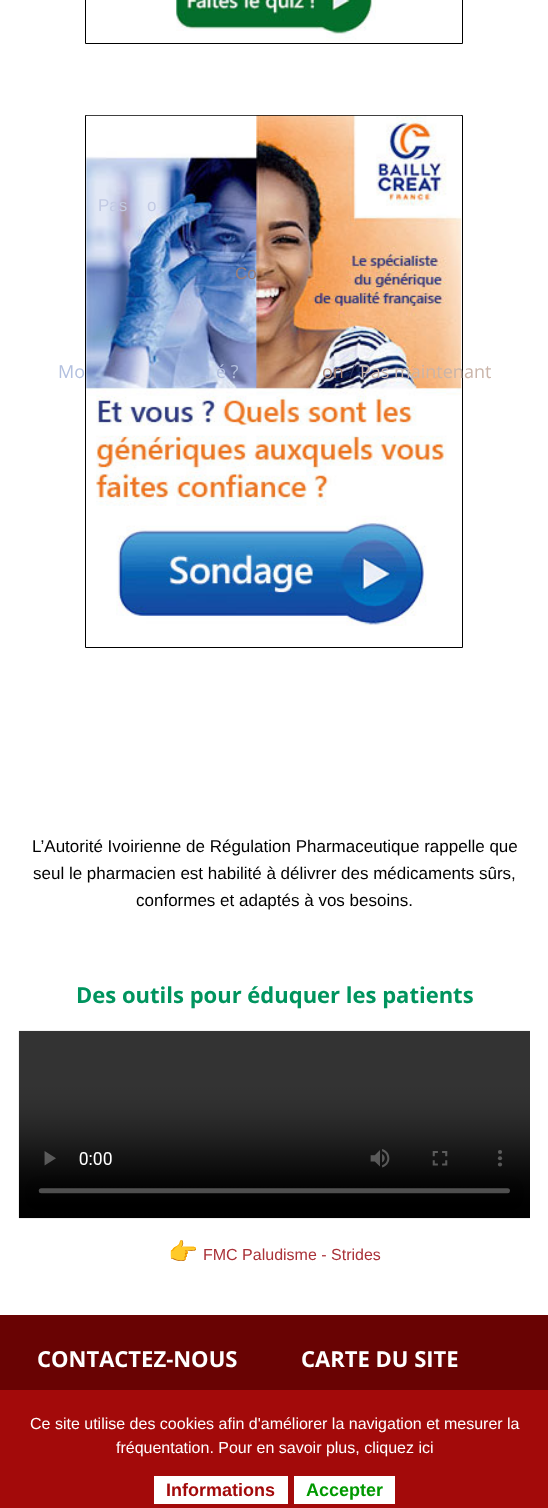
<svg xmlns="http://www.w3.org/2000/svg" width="548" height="1508">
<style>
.a{font:17px Liberation Sans;fill:#c2cae3}
.b{font:17px Liberation Sans;fill:#997e78}
.c{font:18px Open Sans;fill:#b3c0df}
.d{font:18px Open Sans;fill:#ae8978}
.e{font:18px Open Sans;fill:#2a325b}
.f{font:18px Open Sans;fill:#cab5aa}
.g{font:17px Liberation Sans;fill:#000}
.h{font:bold 22px Open Sans;fill:#00945e}
.i{font:bold 24px Noto Color Emoji;fill:#000}
.j{font:16px Liberation Sans;fill:#aa3138}
.k{font:bold 22px Open Sans;fill:#fff}
.l{font:16px Liberation Sans;fill:#fff}
.m{font:bold 18px Liberation Sans;fill:#a30a0a}
.n{font:bold 18px Liberation Sans;fill:#090}
</style>
<rect width="100%" height="100%" fill="#fff"/>
<path fill="none" stroke="#000" d="M85.5 -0.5h377v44H85.5z"/>
<image href="1.png" x="176" y="0" width="200" height="41"/>
<path fill="none" stroke="#000" d="M85.5 115.5h377v532H85.5z"/>
<image href="2.png" x="86" y="115" width="376" height="511"/>
<image href="3.png" x="18" y="1030" width="512" height="189"/>
<path fill="#690303" d="M0 1315h548v75H0z"/>
<path fill="#a30a0a" d="M0 1390h548v118H0z"/>
<path fill="#fff" d="M154 1476h134v28H154z"/>
<path fill="#fff" d="M294 1476h101v28H294z"/>
<text class="a" x="98" y="211">Pas</text>
<text class="a" x="147" y="211">o</text>
<text class="b" x="235" y="279">Co</text>
<text class="c" x="58" y="378">Mo</text>
<text class="c" x="216" y="378">é ?</text>
<text class="d" x="322" y="378">on</text>
<text class="e" x="349" y="378">/</text>
<text class="f" x="360" y="378">Pas maintenant</text>
<text class="g" x="32" y="852">L’Autorité Ivoirienne de Régulation Pharmaceutique rappelle que</text>
<text class="g" x="33" y="879">seul le pharmacien est habilité à délivrer des médicaments sûrs,</text>
<text class="g" x="136" y="906">conformes et adaptés à vos besoins.</text>
<text class="h" x="76" y="1003">Des outils pour éduquer les patients</text>
<text class="i" x="168" y="1260">👉</text>
<text class="j" x="203" y="1260">FMC Paludisme - Strides</text>
<text class="k" x="37" y="1367">CONTACTEZ-NOUS</text>
<text class="k" x="301" y="1367">CARTE DU SITE</text>
<text class="l" x="30" y="1429">Ce site utilise des cookies afin d'améliorer la navigation et mesurer la</text>
<text class="l" x="116" y="1453">fréquentation. Pour en savoir plus, cliquez ici</text>
<text class="m" x="166" y="1496">Informations</text>
<text class="n" x="306" y="1496">Accepter</text>
</svg>
